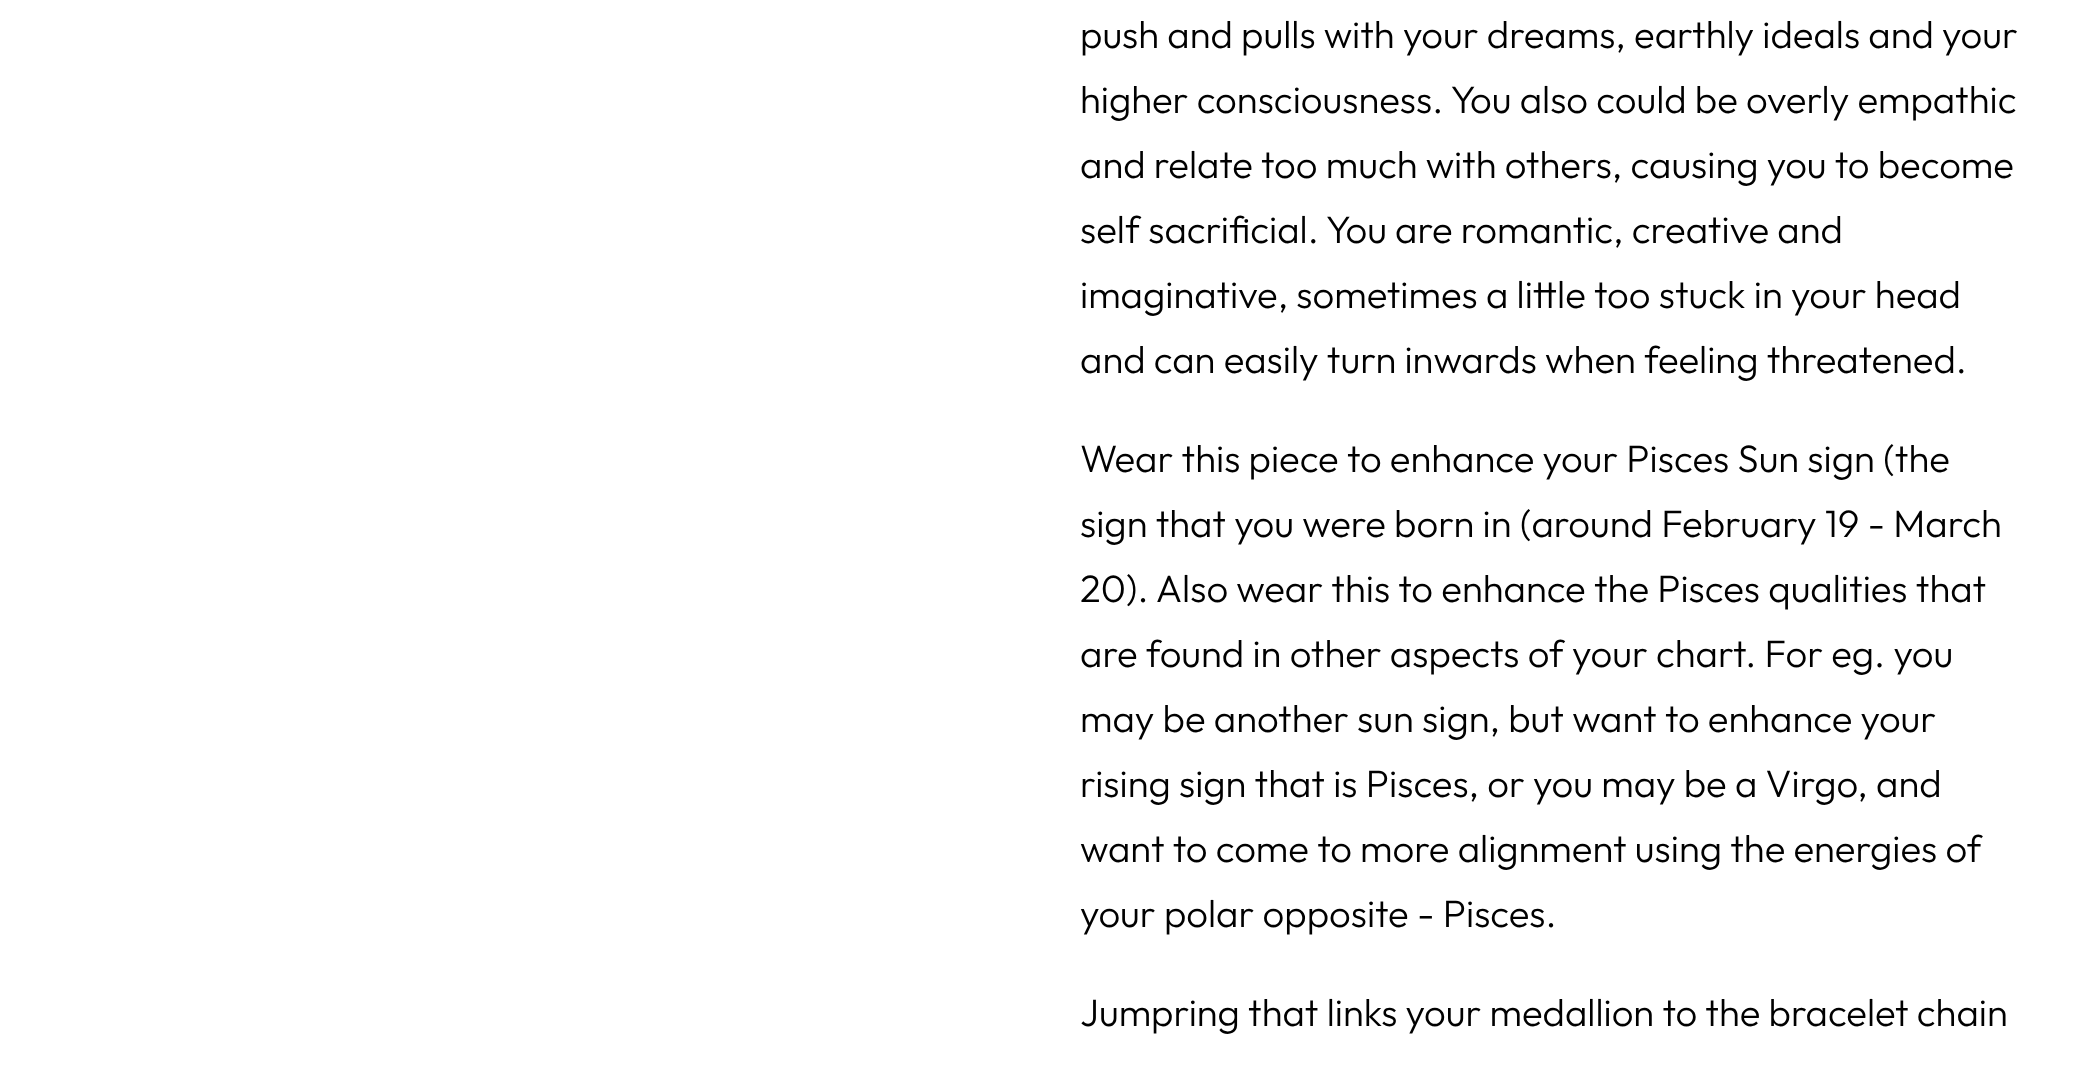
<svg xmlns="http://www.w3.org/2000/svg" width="2091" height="1072">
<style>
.a{font:300 38.25px Outfit;fill:#000}
</style>
<rect width="100%" height="100%" fill="#fff"/>
<text class="a" x="1080" y="48">push and pulls with your dreams, earthly ideals and your</text>
<text class="a" x="1080" y="113">higher consciousness. You also could be overly empathic</text>
<text class="a" x="1080" y="178">and relate too much with others, causing you to become</text>
<text class="a" x="1080" y="243">self sacrificial. You are romantic, creative and</text>
<text class="a" x="1080" y="308">imaginative, sometimes a little too stuck in your head</text>
<text class="a" x="1080" y="373">and can easily turn inwards when feeling threatened.</text>
<text class="a" x="1080" y="472">Wear this piece to enhance your Pisces Sun sign (the</text>
<text class="a" x="1080" y="537">sign that you were born in (around February 19 - March</text>
<text class="a" x="1080" y="602">20). Also wear this to enhance the Pisces qualities that</text>
<text class="a" x="1080" y="667">are found in other aspects of your chart. For eg. you</text>
<text class="a" x="1080" y="732">may be another sun sign, but want to enhance your</text>
<text class="a" x="1080" y="797">rising sign that is Pisces, or you may be a Virgo, and</text>
<text class="a" x="1080" y="862">want to come to more alignment using the energies of</text>
<text class="a" x="1080" y="927">your polar opposite - Pisces.</text>
<text class="a" x="1080" y="1026">Jumpring that links your medallion to the bracelet chain</text>
</svg>
